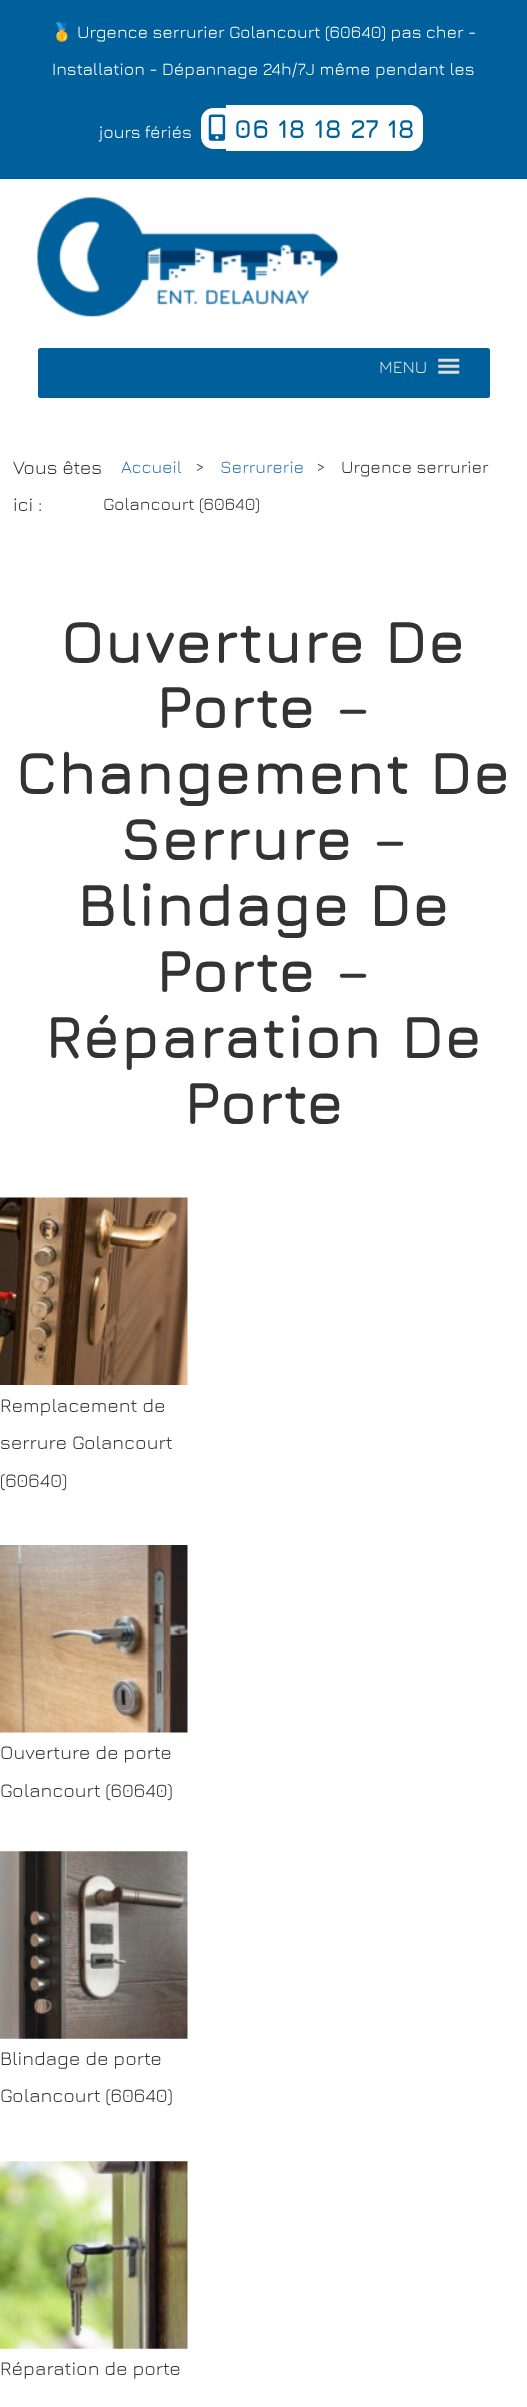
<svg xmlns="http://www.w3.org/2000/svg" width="527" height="2407">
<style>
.a{font:17.5px Noto Color Emoji;fill:#fff}
.b{font:17.5px Jura;fill:#fff}
.c{font:bold 26.25px Jura;fill:#00609b}
.d{font:17.5px Jura;fill:#ddd}
.e{font:19.25px Jura;fill:#333}
.f{font:17.5px Jura;fill:#337ab7}
.g{font:17.5px Jura;fill:#333}
.h{font:bold 60px Jura;fill:#333}
</style>
<rect width="100%" height="100%" fill="#fff"/>
<path fill="#00609b" d="M0 0h527v179H0z"/>
<path fill="#fff" d="M213.5 108h12.5v41h-12.5c-7 0-12.5-5.5-12.5-12.5v-16c0-7 5.5-12.5 12.5-12.5z"/>
<path fill="#fff" d="M226 105h184c7 0 13 6 13 13v20c0 7-6 13-13 13h-184z"/>
<image href="1.png" x="208" y="114" width="18" height="27"/>
<image href="2.png" x="37" y="197" width="301" height="120"/>
<rect fill="#00609b" x="38" y="348" width="452" height="50" rx="2.5"/>
<image href="3.png" x="438" y="358" width="22" height="16"/>
<image href="4.png" x="0" y="1197" width="188" height="188"/>
<image href="5.png" x="0" y="1545" width="188" height="188"/>
<image href="6.png" x="0" y="1851" width="188" height="188"/>
<image href="7.png" x="0" y="2161" width="188" height="188"/>
<text class="a" x="51" y="38">🥇</text>
<text class="b" x="77" y="38">Urgence serrurier Golancourt (60640) pas cher -</text>
<text class="b" x="52" y="75">Installation - Dépannage 24h/7J même pendant les</text>
<text class="b" x="99" y="138">jours fériés</text>
<text class="c" x="234" y="138">06 18 18 27 18</text>
<text class="d" x="379" y="373">MENU</text>
<text class="e" x="13" y="474">Vous êtes</text>
<text class="e" x="13" y="511">ici :</text>
<text class="f" x="121" y="473">Accueil</text>
<text class="g" x="195" y="473">&gt;</text>
<text class="f" x="220" y="473">Serrurerie</text>
<text class="g" x="316" y="473">&gt;</text>
<text class="g" x="341" y="473">Urgence serrurier</text>
<text class="g" x="103" y="510">Golancourt (60640)</text>
<text class="h" x="61" y="663">Ouverture De</text>
<text class="h" x="156" y="728">Porte –</text>
<text class="h" x="16" y="794">Changement De</text>
<text class="h" x="120" y="860">Serrure –</text>
<text class="h" x="77" y="926">Blindage De</text>
<text class="h" x="156" y="992">Porte –</text>
<text class="h" x="45" y="1058">Réparation De</text>
<text class="h" x="184" y="1124">Porte</text>
<text class="e" x="0" y="1412">Remplacement de</text>
<text class="e" x="0" y="1449">serrure Golancourt</text>
<text class="e" x="0" y="1487">(60640)</text>
<text class="e" x="0" y="1759">Ouverture de porte</text>
<text class="e" x="0" y="1797">Golancourt (60640)</text>
<text class="e" x="0" y="2065">Blindage de porte</text>
<text class="e" x="0" y="2102">Golancourt (60640)</text>
<text class="e" x="0" y="2375">Réparation de porte</text>
</svg>
